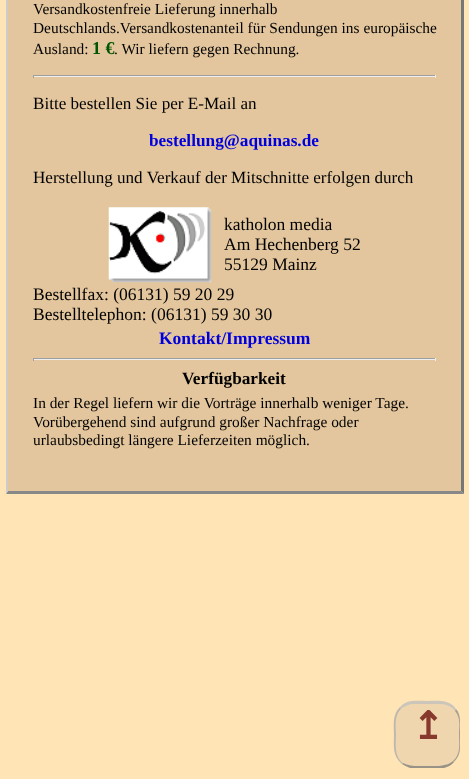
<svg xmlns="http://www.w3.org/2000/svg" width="469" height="779">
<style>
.a{font:15.4px Liberation Serif;fill:#000}
.b{font:bold 18px Liberation Serif;fill:#050}
.c{font:17.1px Liberation Serif;fill:#000}
.d{font:bold 17.25px Liberation Serif;fill:#00d}
.e{font:17.5px Liberation Serif;fill:#000}
.f{font:bold 17.5px Liberation Serif;fill:#00d}
.g{font:bold 17.25px Liberation Serif;fill:#000}
.h{font:bold 38px DejaVu Sans;fill:#88392d}
</style>
<rect width="100%" height="100%" fill="#ffe4b5"/>
<path fill="#e3c69d" d="M8 0h453v491H8z"/>
<path fill="#777" d="M464-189v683l-3-3v-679z"/>
<path fill="#888" d="M464 494h-458l2-3h453z"/>
<path fill="#ccc" d="M6 494v-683l2 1v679z"/>
<path fill="#9f9f9f" d="M33 75h403v1H33z"/>
<path fill="#eee" d="M435 75h1v3H435z"/>
<path fill="#eee" d="M33 76h403v1H33z"/>
<path fill="#9f9f9f" d="M33 75h1v3H33z"/>
<image href="1.png" x="108" y="207" width="104" height="76"/>
<path fill="#9f9f9f" d="M33 358h403v1H33z"/>
<path fill="#eee" d="M435 358h1v3H435z"/>
<path fill="#eee" d="M33 359h403v1H33z"/>
<path fill="#9f9f9f" d="M33 358h1v3H33z"/>
<path fill="#efd6ae" d="M414 704h26c10 0 19 8 19 17v27c0 10-9 18-19 18h-26c-10 0-18-8-18-18v-27c0-9 8-17 18-17z"/>
<path fill="#ccc5ba" d="M414 704c-5 0-9 2-13 5l-1-2c7-8 17-6 27-6c11 0 22-2 29 8l-1 2c-3-4-9-7-15-7z"/>
<path fill="#888888bf" d="M460 748v-27c0-4-1-9-4-12l-1 2c6 7 4 16 4 23c0 10 2 20-6 27l1 1c4-4 6-9 6-14z"/>
<path fill="#999287" d="M410 768c-3-1-6-3-8-4l1-1c7 4 16 3 24 3c9 0 19 1 26-5l1 1c-2 3-6 5-10 6z"/>
<path fill="#aaaaaabf" d="M402 764c-10-8-8-19-8-30c0-9-2-19 6-27l1 2c-7 7-5 17-5 25c0 11-2 22 7 29z"/>
<text class="a" x="33" y="14">Versandkostenfreie Lieferung innerhalb</text>
<text class="a" x="33" y="33">Deutschlands.Versandkostenanteil für Sendungen ins europäische</text>
<text class="a" x="33" y="54">Ausland:</text>
<text class="b" x="92" y="54">1 €</text>
<text class="a" x="114" y="54">. Wir liefern gegen Rechnung.</text>
<text class="c" x="33" y="109">Bitte bestellen Sie per E-Mail an</text>
<text class="d" x="149" y="146">bestellung@aquinas.de</text>
<text class="c" x="33" y="183">Herstellung und Verkauf der Mitschnitte erfolgen durch</text>
<text class="e" x="224" y="230">katholon media</text>
<text class="e" x="224" y="250">Am Hechenberg 52</text>
<text class="e" x="224" y="270">55129 Mainz</text>
<text class="e" x="33" y="300">Bestellfax: (06131) 59 20 29</text>
<text class="e" x="33" y="320">Bestelltelephon: (06131) 59 30 30</text>
<text class="f" x="159" y="344">Kontakt/Impressum</text>
<text class="g" x="182" y="384">Verfügbarkeit</text>
<text class="a" x="33" y="408">In der Regel liefern wir die Vorträge innerhalb weniger Tage.</text>
<text class="a" x="33" y="427">Vorübergehend sind aufgrund großer Nachfrage oder</text>
<text class="a" x="33" y="445">urlaubsbedingt längere Lieferzeiten möglich.</text>
<text class="h" x="412" y="739">↥</text>
</svg>
